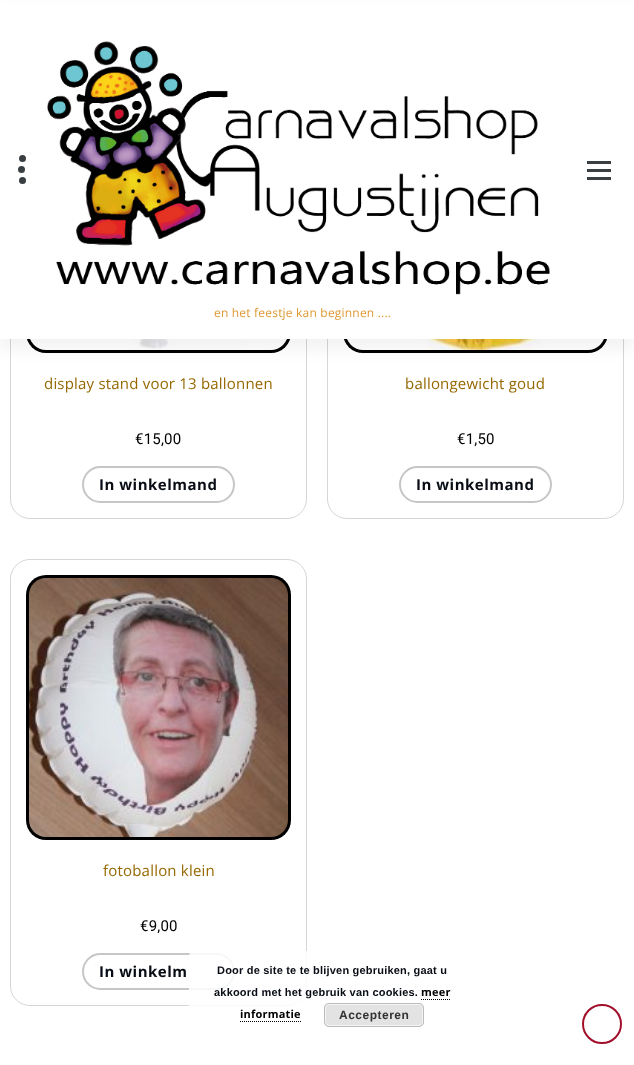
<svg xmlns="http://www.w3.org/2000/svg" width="634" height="1065">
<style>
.a{font:12px Open Sans;letter-spacing:0.2px;fill:#d93}
.b{font:15px Open Sans;letter-spacing:0.2px;fill:#956802}
.c{font:15px Roboto;letter-spacing:0.2px;fill:#000}
.d{font:bold 15px Open Sans;letter-spacing:0.5px;fill:#080c14}
.e{font:bold 11px Liberation Sans;letter-spacing:0.2px;fill:#080c14}
.f{font:bold 11px Open Sans;letter-spacing:0.2px;fill:#000}
.g{font:bold 12px Liberation Sans;letter-spacing:0.5px;fill:#333}
</style>
<rect width="100%" height="100%" fill="#fff"/>
<rect fill="none" stroke="#d6d6d6" x="10.5" y="72.5" width="296" height="446" rx="19.5"/>
<rect fill="#000" x="26" y="88" width="265" height="265" rx="20"/>
<image href="2.png" x="30" y="339" width="257" height="11"/>
<rect fill="none" stroke="#d6d6d6" x="327.5" y="72.5" width="296" height="446" rx="19.5"/>
<rect fill="#000" x="343" y="88" width="265" height="265" rx="20"/>
<image href="3.png" x="347" y="339" width="257" height="11"/>
<path fill="#0000000d" filter="blur(7.5px)" d="M0 9h634v340H0z"/>
<path fill="#fff" d="M0 3h634v336H0z"/>
<circle fill="#383e41" cx="21.5" cy="169.5" r="3.5"/>
<circle fill="#383e41" cx="22.5" cy="158.5" r="3.5"/>
<circle fill="#383e41" cx="22.5" cy="180.5" r="3.5"/>
<path fill="#383e41" d="M587 161h24v3H587z"/>
<path fill="#383e41" d="M587 169h24v3H587z"/>
<path fill="#383e41" d="M587 177h24v3H587z"/>
<image href="1.png" x="47" y="41" width="503" height="254"/>
<rect fill="none" stroke="#c6c6c6" stroke-width="2" x="83" y="467" width="151" height="35" rx="17.5"/>
<rect fill="none" stroke="#c6c6c6" stroke-width="2" x="400" y="467" width="151" height="35" rx="17.5"/>
<rect fill="none" stroke="#d6d6d6" x="10.5" y="559.5" width="296" height="446" rx="19.5"/>
<rect fill="#000" x="26" y="575" width="265" height="265" rx="20"/>
<image href="4.png" x="29" y="578" width="259" height="259"/>
<rect fill="none" stroke="#c6c6c6" stroke-width="2" x="83" y="954" width="151" height="35" rx="17.5"/>
<circle fill="none" stroke="#a10f2b" stroke-width="2" cx="602" cy="1024" r="19"/>
<rect fill="#ffffffd9" x="189" y="951" width="287" height="84" rx="5"/>
<path fill="none" stroke="#000" stroke-dasharray="1 1" d="M421 999.5h29"/>
<path fill="none" stroke="#000" stroke-dasharray="1 1" d="M240 1021.5h61"/>
<rect fill="#e3e3e3" x="324" y="1003" width="100" height="24" rx="5"/>
<rect fill="none" stroke="#f6f6f6" x="325.5" y="1004.5" width="97" height="21" rx="3.5"/>
<rect fill="none" stroke="#bbb" x="324.5" y="1003.5" width="99" height="23" rx="4.5"/>
<text class="a" x="214" y="317">en het feestje kan beginnen ....</text>
<text class="b" x="44" y="389">display stand voor 13 ballonnen</text>
<text class="c" x="135" y="444">€15,00</text>
<text class="d" x="99" y="490">In winkelmand</text>
<text class="b" x="405" y="389">ballongewicht goud</text>
<text class="c" x="457" y="444">€1,50</text>
<text class="d" x="416" y="490">In winkelmand</text>
<text class="b" x="103" y="876">fotoballon klein</text>
<text class="c" x="140" y="931">€9,00</text>
<text class="d" x="99" y="977">In winkelm</text>
<text class="e" x="217" y="974">Door de site te te blijven gebruiken, gaat u</text>
<text class="e" x="214" y="996">akkoord met het gebruik van cookies.</text>
<text class="f" x="421" y="996">meer</text>
<text class="f" x="240" y="1018">informatie</text>
<text class="g" x="339" y="1019">Accepteren</text>
</svg>
